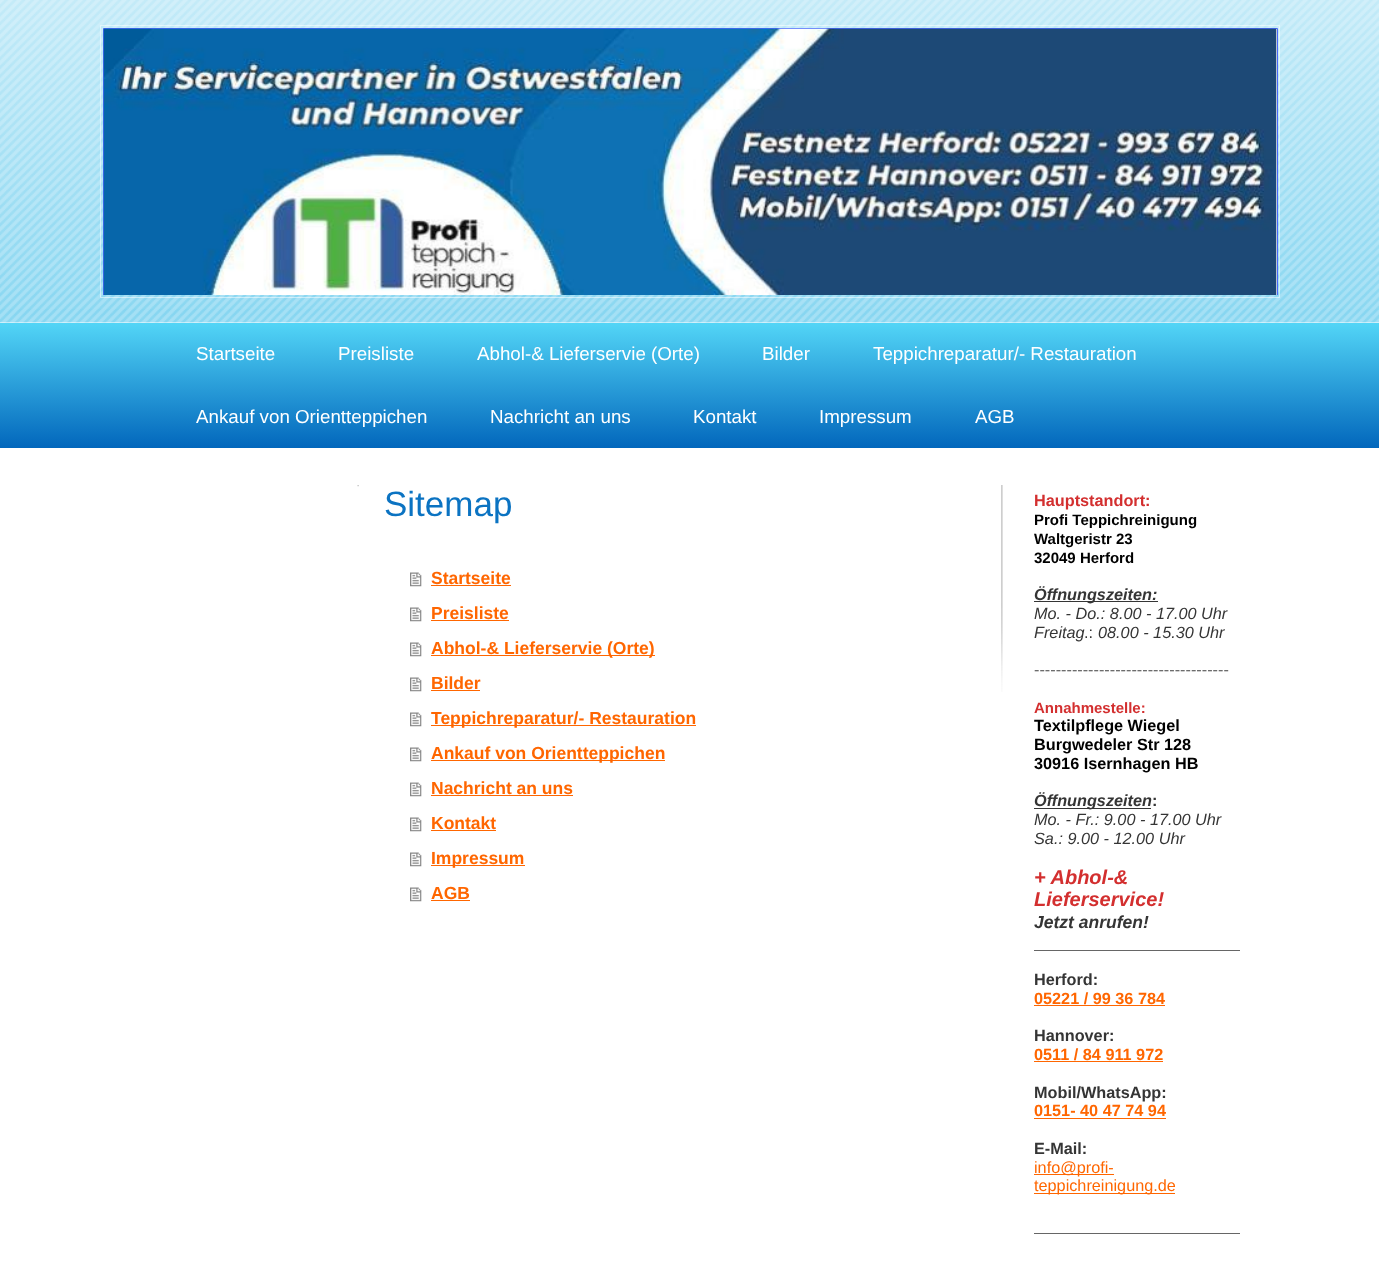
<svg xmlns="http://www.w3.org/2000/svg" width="1379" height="1268">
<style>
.a{font:18.75px Liberation Sans;fill:#fff}
.b{font:35px Liberation Sans;fill:#0b73c2}
.c{font:bold 17.5px Liberation Sans;fill:#f60}
.d{font:bold 16.25px Liberation Sans;fill:#d32f2f}
.e{font:bold 15px Liberation Sans;fill:#000}
.f{font:italic bold 16.25px Liberation Sans;fill:#353535}
.g{font:italic 16.25px Liberation Sans;fill:#353535}
.h{font:16.25px Liberation Sans;fill:#353535}
.i{font:16.25px Liberation Sans;fill:#666}
.j{font:bold 15px Liberation Sans;fill:#d32f2f}
.k{font:bold 16.25px Liberation Sans;fill:#000}
.l{font:bold 16.25px Liberation Sans;fill:#353535}
.m{font:italic bold 20px Liberation Sans;fill:#d32f2f}
.n{font:italic bold 17.5px Liberation Sans;fill:#353535}
.o{font:bold 16.25px Liberation Sans;fill:#f60}
.p{font:16.25px Liberation Sans;fill:#f60}
</style>
<defs>
<linearGradient id="g1" gradientUnits="userSpaceOnUse" x1="690" y1="0" x2="690" y2="323"><stop offset="0" stop-color="#fff" stop-opacity="0.5"/><stop offset="1" stop-color="#fff" stop-opacity="0"/></linearGradient>
<clipPath id="clip1"><path d="M103 28h1175v267H103z"/></clipPath>
<linearGradient id="g2" gradientUnits="userSpaceOnUse" x1="690" y1="322" x2="690" y2="448"><stop offset="0" stop-color="#53d6f7"/><stop offset="1" stop-color="#0267bc"/></linearGradient>
</defs>
<rect width="100%" height="100%" fill="#fff"/>
<image href="1.png" x="0" y="0" width="1379" height="323"/>
<path fill="url(#g1)" d="M0 0h1379v309H0z"/>
<path fill="none" stroke="#ffffff80" d="M100.5 25.5h1179v272H100.5z"/>
<path fill="#eee" d="M1276 29h1v266H1276z"/>
<g clip-path="url(#clip1)">
<path fill="none" stroke="#4868fb" d="M103.5 28.5h1174v267H103.5z"/>
</g>
<image href="2.png" x="103" y="28" width="1174" height="267"/>
<path fill="url(#g2)" d="M0 323h1379v125H0z"/>
<image href="3.png" x="357" y="485" width="2" height="2"/>
<image href="4.png" x="1001" y="485" width="2" height="207"/>
<image href="5.png" x="410" y="572" width="12" height="15"/>
<path fill="#f60" d="M431 585h80v1H431z"/>
<image href="5.png" x="410" y="607" width="12" height="15"/>
<path fill="#f60" d="M431 620h78v1H431z"/>
<image href="5.png" x="410" y="642" width="12" height="15"/>
<path fill="#f60" d="M431 655h224v1H431z"/>
<image href="5.png" x="410" y="677" width="12" height="15"/>
<path fill="#f60" d="M431 690h49v1H431z"/>
<image href="5.png" x="410" y="712" width="12" height="15"/>
<path fill="#f60" d="M431 725h265v1H431z"/>
<image href="5.png" x="410" y="747" width="12" height="15"/>
<path fill="#f60" d="M431 760h234v1H431z"/>
<image href="6.png" x="410" y="782" width="12" height="15"/>
<path fill="#f60" d="M431 795h142v1H431z"/>
<image href="5.png" x="410" y="817" width="12" height="15"/>
<path fill="#f60" d="M431 830h65v1H431z"/>
<image href="5.png" x="410" y="852" width="12" height="15"/>
<path fill="#f60" d="M431 865h94v1H431z"/>
<image href="5.png" x="410" y="887" width="12" height="15"/>
<path fill="#f60" d="M431 900h39v1H431z"/>
<path fill="#353535" d="M1034 601h124v1H1034z"/>
<path fill="#353535" d="M1034 808h117v1H1034z"/>
<path fill="#666" d="M1034 950h206v1H1034z"/>
<path fill="#f60" d="M1034 1005h131v1H1034z"/>
<path fill="#f60" d="M1034 1061h129v1H1034z"/>
<path fill="#f60" d="M1034 1118h132v1H1034z"/>
<path fill="#f60" d="M1034 1174h80v1H1034z"/>
<path fill="#f60" d="M1034 1193h141v1H1034z"/>
<path fill="#666" d="M1034 1233h206v1H1034z"/>
<text class="a" x="196" y="360">Startseite</text>
<text class="a" x="338" y="360">Preisliste</text>
<text class="a" x="477" y="360">Abhol-&amp; Lieferservie (Orte)</text>
<text class="a" x="762" y="360">Bilder</text>
<text class="a" x="873" y="360">Teppichreparatur/- Restauration</text>
<text class="a" x="196" y="423">Ankauf von Orientteppichen</text>
<text class="a" x="490" y="423">Nachricht an uns</text>
<text class="a" x="693" y="423">Kontakt</text>
<text class="a" x="819" y="423">Impressum</text>
<text class="a" x="975" y="423">AGB</text>
<text class="b" x="384" y="516">Sitemap</text>
<text class="c" x="431" y="584">Startseite</text>
<text class="c" x="431" y="619">Preisliste</text>
<text class="c" x="431" y="654">Abhol-&amp; Lieferservie (Orte)</text>
<text class="c" x="431" y="689">Bilder</text>
<text class="c" x="431" y="724">Teppichreparatur/- Restauration</text>
<text class="c" x="431" y="759">Ankauf von Orientteppichen</text>
<text class="c" x="431" y="794">Nachricht an uns</text>
<text class="c" x="431" y="829">Kontakt</text>
<text class="c" x="431" y="864">Impressum</text>
<text class="c" x="431" y="899">AGB</text>
<text class="d" x="1034" y="506">Hauptstandort:</text>
<text class="e" x="1034" y="525">Profi Teppichreinigung</text>
<text class="e" x="1034" y="544">Waltgeristr 23</text>
<text class="e" x="1034" y="563">32049 Herford</text>
<text class="f" x="1034" y="600">Öffnungszeiten:</text>
<text class="g" x="1034" y="619">Mo. - Do.: 8.00 - 17.00 Uhr</text>
<text class="g" x="1034" y="638">Freitag</text>
<text class="h" x="1084" y="638">.:</text>
<text class="g" x="1098" y="638">08.00 - 15.30 Uhr</text>
<text class="i" x="1034" y="675">------------------------------------</text>
<text class="j" x="1034" y="713">Annahmestelle:</text>
<text class="k" x="1034" y="731">Textilpflege Wiegel</text>
<text class="k" x="1034" y="750">Burgwedeler Str 128</text>
<text class="k" x="1034" y="769">30916 Isernhagen HB</text>
<text class="f" x="1034" y="806">Öffnungszeiten</text>
<text class="l" x="1152" y="806">:</text>
<text class="g" x="1034" y="825">Mo. - Fr.: 9.00 - 17.00 Uhr</text>
<text class="g" x="1034" y="844">Sa.: 9.00 - 12.00 Uhr</text>
<text class="m" x="1034" y="884">+ Abhol-&amp;</text>
<text class="m" x="1034" y="906">Lieferservice!</text>
<text class="n" x="1034" y="928">Jetzt anrufen!</text>
<text class="l" x="1034" y="985">Herford:</text>
<text class="o" x="1034" y="1004">05221 / 99 36 784</text>
<text class="l" x="1034" y="1041">Hannover:</text>
<text class="o" x="1034" y="1060">0511 / 84 911 972</text>
<text class="l" x="1034" y="1098">Mobil/WhatsApp:</text>
<text class="o" x="1034" y="1116">0151- 40 47 74 94</text>
<text class="l" x="1034" y="1154">E-Mail:</text>
<text class="p" x="1034" y="1173">info@profi-</text>
<text class="p" x="1034" y="1191">teppichreinigung.de</text>
</svg>
